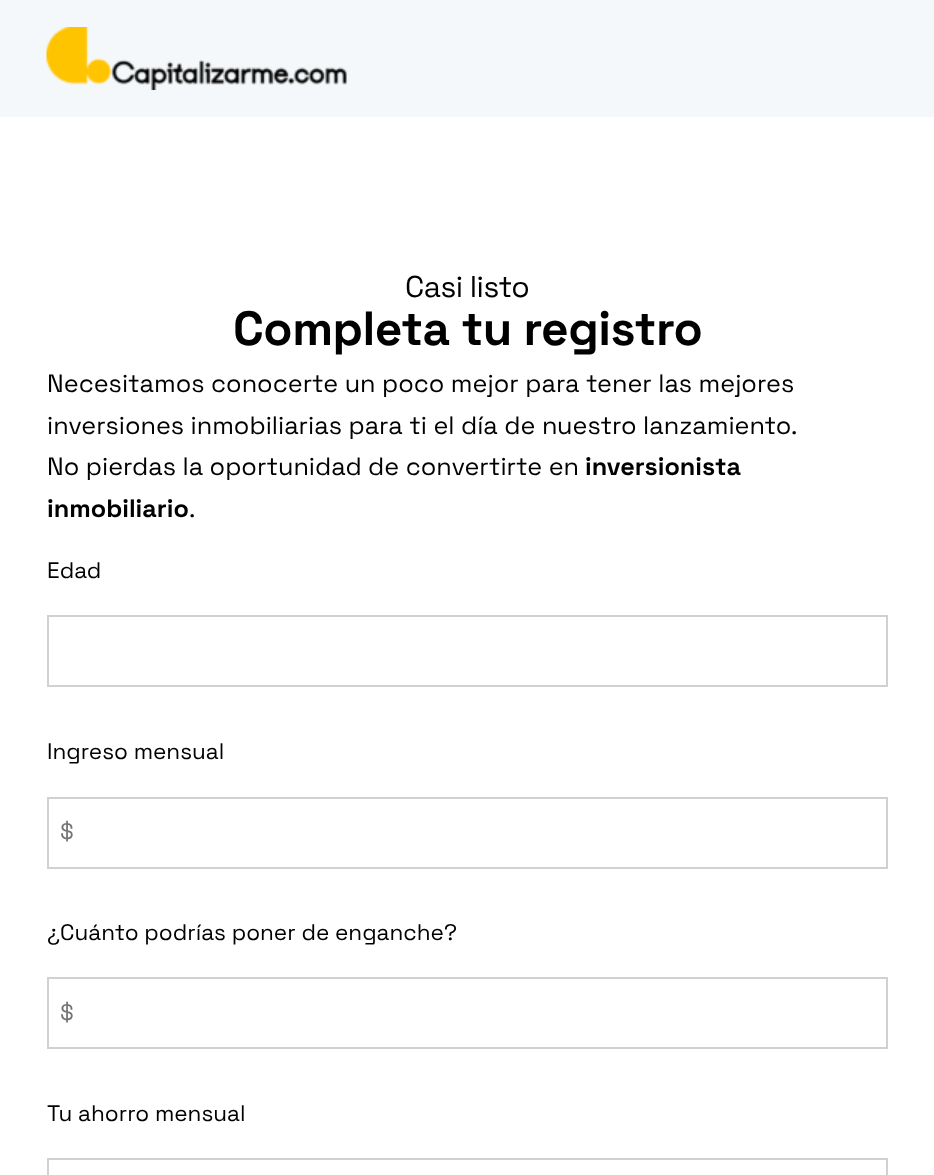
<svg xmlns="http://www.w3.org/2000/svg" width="934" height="1175">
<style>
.a{font:30px Space Grotesk;letter-spacing:-0.5px;fill:#000}
.b{font:300 47.9px Space Grotesk;letter-spacing:-0.5px;fill:#000}
.c{font:25.2px Space Grotesk;fill:#000}
.d{font:300 25.2px Space Grotesk;fill:#000}
.e{font:22.5px Space Grotesk;fill:#000}
.f{font:22.5px Space Grotesk;fill:#757575}
</style>
<rect width="100%" height="100%" fill="#fff"/>
<path fill="#f5f8fa" d="M0 0h934v117H0z"/>
<image href="1.png" x="46" y="27" width="301" height="63"/>
<path fill="none" stroke="#d2d0d0" stroke-width="2" d="M48 616h839v70H48z"/>
<path fill="none" stroke="#d2d0d0" stroke-width="2" d="M48 798h839v70H48z"/>
<path fill="none" stroke="#d2d0d0" stroke-width="2" d="M48 978h839v70H48z"/>
<path fill="none" stroke="#d2d0d0" stroke-width="2" d="M48 1159h839v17H48z"/>
<text class="a" x="405" y="297">Casi listo</text>
<text class="b" x="233" y="345">Completa tu registro</text>
<text class="c" x="47" y="392">Necesitamos conocerte un poco mejor para tener las mejores</text>
<text class="c" x="47" y="434">inversiones inmobiliarias para ti el día de nuestro lanzamiento.</text>
<text class="c" x="47" y="475">No pierdas la oportunidad de convertirte en</text>
<text class="d" x="585" y="475">inversionista</text>
<text class="d" x="47" y="517">inmobiliario</text>
<text class="c" x="189" y="517">.</text>
<text class="e" x="47" y="578">Edad</text>
<text class="e" x="47" y="759">Ingreso mensual</text>
<text class="f" x="60" y="839">$</text>
<text class="e" x="47" y="940">¿Cuánto podrías poner de enganche?</text>
<text class="f" x="60" y="1020">$</text>
<text class="e" x="47" y="1121">Tu ahorro mensual</text>
</svg>
